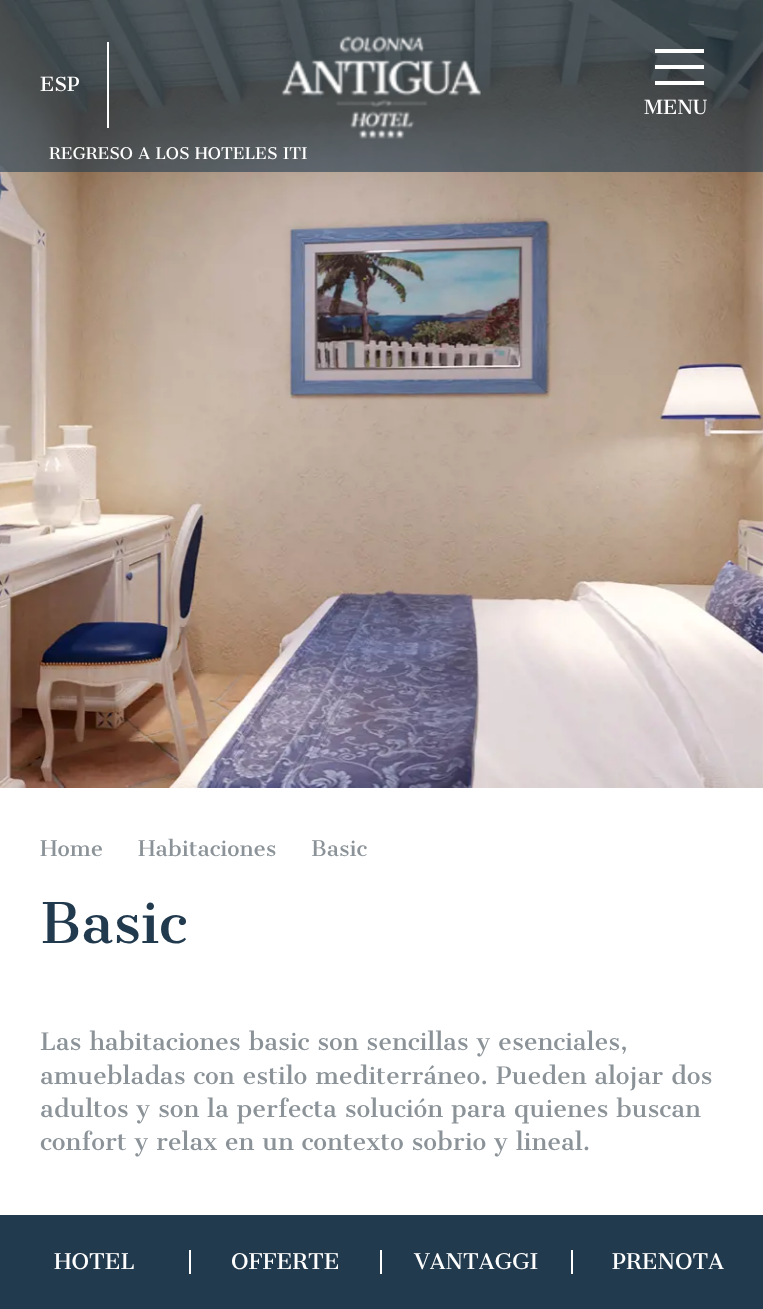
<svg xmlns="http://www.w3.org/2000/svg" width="763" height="1309">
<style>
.a{font:19px Cantata One;fill:#fff}
.b{font:15.75px Cantata One;fill:#fff}
.c{font:21px Cantata One;fill:#8b9398}
.d{font:55px Cantata One;fill:#223a4e}
.e{font:23.6px Cantata One;fill:#8b9398}
.f{font:21px Cantata One;fill:#fff}
</style>
<rect width="100%" height="100%" fill="#fff"/>
<image href="1.png" x="0" y="0" width="763" height="788"/>
<image href="2.png" x="762" y="0" width="1" height="788"/>
<path fill="#223a4e99" d="M0 0h763v172H0z"/>
<path fill="#fff" d="M107 42h2v86H107z"/>
<image href="3.png" x="281" y="35" width="200" height="104"/>
<path fill="#fff" d="M655 49h49v4H655z"/>
<path fill="#fff" d="M655 65h49v4H655z"/>
<path fill="#fff" d="M655 81h49v4H655z"/>
<path fill="#223a4e" d="M0 1215h763v94H0z"/>
<path fill="#fff" d="M189 1250h2v24H189z"/>
<path fill="#fff" d="M380 1250h2v24H380z"/>
<path fill="#fff" d="M571 1250h2v24H571z"/>
<text class="a" x="40" y="91">ESP</text>
<text class="a" x="644" y="114">MENU</text>
<text class="b" x="49" y="159">REGRESO A LOS HOTELES ITI</text>
<text class="c" x="40" y="856">Home</text>
<text class="c" x="138" y="856">Habitaciones</text>
<text class="c" x="311" y="856">Basic</text>
<text class="d" x="40" y="943">Basic</text>
<text class="e" x="40" y="1050">Las habitaciones basic son sencillas y esenciales,</text>
<text class="e" x="40" y="1084">amuebladas con estilo mediterráneo. Pueden alojar dos</text>
<text class="e" x="40" y="1117">adultos y son la perfecta solución para quienes buscan</text>
<text class="e" x="40" y="1150">confort y relax en un contexto sobrio y lineal.</text>
<text class="f" x="54" y="1269">HOTEL</text>
<text class="f" x="231" y="1269">OFFERTE</text>
<text class="f" x="414" y="1269">VANTAGGI</text>
<text class="f" x="612" y="1269">PRENOTA</text>
</svg>
